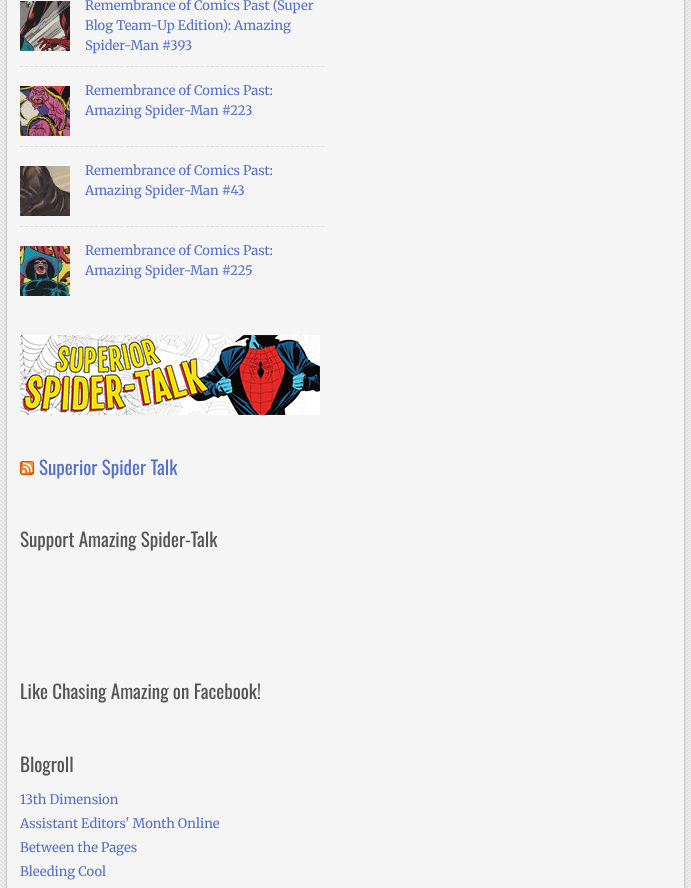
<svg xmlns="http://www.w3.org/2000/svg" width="691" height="888">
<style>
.a{font:13px Merriweather;fill:#5670c8}
.b{font:19px Oswald;fill:#5670c8}
.c{font:19px Oswald;fill:#555}
</style>
<rect width="100%" height="100%" fill="#fff"/>
<image href="1.png" x="0" y="0" width="691" height="888"/>
<path fill="#0000004d" filter="blur(1.5px)" d="M7 -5h677v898H7z"/>
<path fill="#f5f5f5" d="M7 0h677v888H7z"/>
<path fill="none" stroke="#ddd" stroke-dasharray="3 2.02" d="M20 66.5h304"/>
<image href="2.png" x="20" y="1" width="50" height="50"/>
<path fill="none" stroke="#ddd" stroke-dasharray="3 2.02" d="M20 146.5h304"/>
<image href="3.png" x="20" y="86" width="50" height="50"/>
<path fill="none" stroke="#ddd" stroke-dasharray="3 2.02" d="M20 226.5h304"/>
<image href="4.png" x="20" y="166" width="50" height="50"/>
<image href="5.png" x="20" y="246" width="50" height="50"/>
<image href="6.png" x="20" y="335" width="300" height="80"/>
<image href="7.png" x="20" y="461" width="14" height="14"/>
<text class="a" x="85" y="10">Remembrance of Comics Past (Super</text>
<text class="a" x="85" y="30">Blog Team-Up Edition): Amazing</text>
<text class="a" x="85" y="50">Spider-Man #393</text>
<text class="a" x="85" y="95">Remembrance of Comics Past:</text>
<text class="a" x="85" y="115">Amazing Spider-Man #223</text>
<text class="a" x="85" y="175">Remembrance of Comics Past:</text>
<text class="a" x="85" y="195">Amazing Spider-Man #43</text>
<text class="a" x="85" y="255">Remembrance of Comics Past:</text>
<text class="a" x="85" y="275">Amazing Spider-Man #225</text>
<text class="b" x="39" y="475">Superior Spider Talk</text>
<text class="c" x="20" y="547">Support Amazing Spider-Talk</text>
<text class="c" x="20" y="699">Like Chasing Amazing on Facebook!</text>
<text class="c" x="20" y="772">Blogroll</text>
<text class="a" x="20" y="804">13th Dimension</text>
<text class="a" x="20" y="828">Assistant Editors' Month Online</text>
<text class="a" x="20" y="852">Between the Pages</text>
<text class="a" x="20" y="876">Bleeding Cool</text>
</svg>
